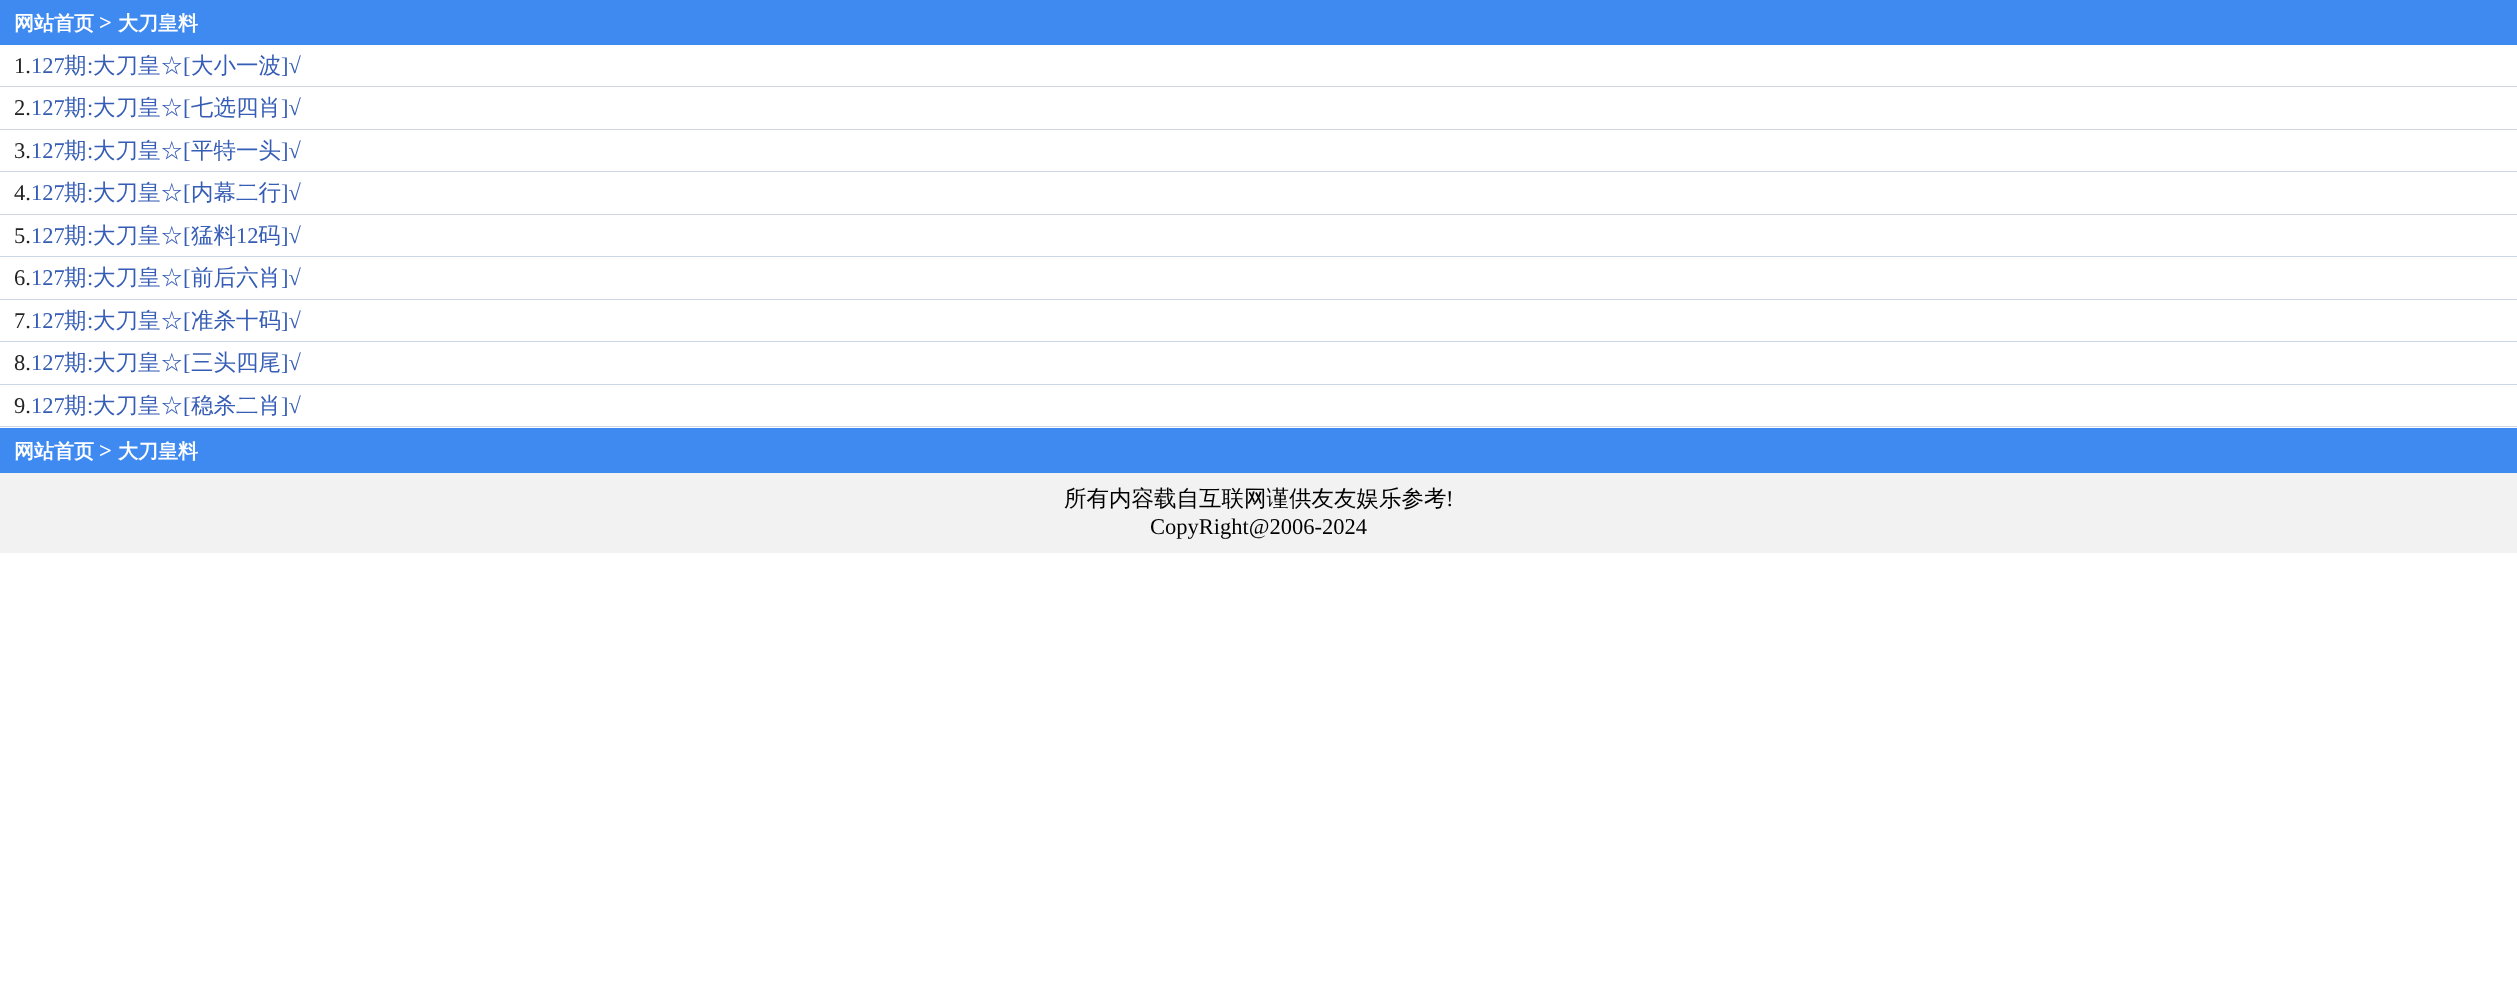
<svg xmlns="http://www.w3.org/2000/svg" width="2517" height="1004">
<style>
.a{font:bold 20px WenQuanYi Zen Hei;fill:#fff}
.b{font:bold 22.5px Liberation Serif;fill:#fff}
.c{font:22.5px Liberation Serif;fill:#232323}
.d{font:22.5px Liberation Serif;fill:#365db5}
.e{font:500 22.5px WenQuanYi Zen Hei;fill:#365db5}
.f{font:500 22.5px WenQuanYi Zen Hei;fill:#000}
.g{font:22.5px Liberation Serif;fill:#000}
</style>
<rect width="100%" height="100%" fill="#fff"/>
<path fill="#3f8af0" d="M0 0h2517v45H0z"/>
<path fill="#ccd6e6" d="M0 86h2517v1H0z"/>
<path fill="#ccd6e6" d="M0 129h2517v1H0z"/>
<path fill="#ccd6e6" d="M0 171h2517v1H0z"/>
<path fill="#ccd6e6" d="M0 214h2517v1H0z"/>
<path fill="#ccd6e6" d="M0 256h2517v1H0z"/>
<path fill="#ccd6e6" d="M0 299h2517v1H0z"/>
<path fill="#ccd6e6" d="M0 341h2517v1H0z"/>
<path fill="#ccd6e6" d="M0 384h2517v1H0z"/>
<path fill="#ccd6e6" d="M0 426h2517v1H0z"/>
<path fill="#3f8af0" d="M0 428h2517v45H0z"/>
<path fill="#f2f2f2" d="M0 473h2517v80H0z"/>
<text class="a" x="14" y="30">网站首页</text>
<text class="b" x="99" y="30">&gt;</text>
<text class="a" x="118" y="30">大刀皇料</text>
<text class="c" x="14" y="73">1.</text>
<text class="d" x="31" y="73">127</text>
<text class="e" x="64" y="73">期</text>
<text class="d" x="87" y="73">:</text>
<text class="e" x="93" y="73">大刀皇☆</text>
<text class="d" x="183" y="73">[</text>
<text class="e" x="191" y="73">大小一波</text>
<text class="d" x="281" y="73">]√</text>
<text class="c" x="14" y="115">2.</text>
<text class="d" x="31" y="115">127</text>
<text class="e" x="64" y="115">期</text>
<text class="d" x="87" y="115">:</text>
<text class="e" x="93" y="115">大刀皇☆</text>
<text class="d" x="183" y="115">[</text>
<text class="e" x="191" y="115">七选四肖</text>
<text class="d" x="281" y="115">]√</text>
<text class="c" x="14" y="158">3.</text>
<text class="d" x="31" y="158">127</text>
<text class="e" x="64" y="158">期</text>
<text class="d" x="87" y="158">:</text>
<text class="e" x="93" y="158">大刀皇☆</text>
<text class="d" x="183" y="158">[</text>
<text class="e" x="191" y="158">平特一头</text>
<text class="d" x="281" y="158">]√</text>
<text class="c" x="14" y="200">4.</text>
<text class="d" x="31" y="200">127</text>
<text class="e" x="64" y="200">期</text>
<text class="d" x="87" y="200">:</text>
<text class="e" x="93" y="200">大刀皇☆</text>
<text class="d" x="183" y="200">[</text>
<text class="e" x="191" y="200">内幕二行</text>
<text class="d" x="281" y="200">]√</text>
<text class="c" x="14" y="243">5.</text>
<text class="d" x="31" y="243">127</text>
<text class="e" x="64" y="243">期</text>
<text class="d" x="87" y="243">:</text>
<text class="e" x="93" y="243">大刀皇☆</text>
<text class="d" x="183" y="243">[</text>
<text class="e" x="191" y="243">猛料</text>
<text class="d" x="236" y="243">12</text>
<text class="e" x="258" y="243">码</text>
<text class="d" x="281" y="243">]√</text>
<text class="c" x="14" y="285">6.</text>
<text class="d" x="31" y="285">127</text>
<text class="e" x="64" y="285">期</text>
<text class="d" x="87" y="285">:</text>
<text class="e" x="93" y="285">大刀皇☆</text>
<text class="d" x="183" y="285">[</text>
<text class="e" x="191" y="285">前后六肖</text>
<text class="d" x="281" y="285">]√</text>
<text class="c" x="14" y="328">7.</text>
<text class="d" x="31" y="328">127</text>
<text class="e" x="64" y="328">期</text>
<text class="d" x="87" y="328">:</text>
<text class="e" x="93" y="328">大刀皇☆</text>
<text class="d" x="183" y="328">[</text>
<text class="e" x="191" y="328">准杀十码</text>
<text class="d" x="281" y="328">]√</text>
<text class="c" x="14" y="370">8.</text>
<text class="d" x="31" y="370">127</text>
<text class="e" x="64" y="370">期</text>
<text class="d" x="87" y="370">:</text>
<text class="e" x="93" y="370">大刀皇☆</text>
<text class="d" x="183" y="370">[</text>
<text class="e" x="191" y="370">三头四尾</text>
<text class="d" x="281" y="370">]√</text>
<text class="c" x="14" y="413">9.</text>
<text class="d" x="31" y="413">127</text>
<text class="e" x="64" y="413">期</text>
<text class="d" x="87" y="413">:</text>
<text class="e" x="93" y="413">大刀皇☆</text>
<text class="d" x="183" y="413">[</text>
<text class="e" x="191" y="413">稳杀二肖</text>
<text class="d" x="281" y="413">]√</text>
<text class="a" x="14" y="458">网站首页</text>
<text class="b" x="99" y="458">&gt;</text>
<text class="a" x="118" y="458">大刀皇料</text>
<text class="f" x="1064" y="506">所有内容载自互联网谨供友友娱乐参考</text>
<text class="g" x="1446" y="506">!</text>
<text class="g" x="1150" y="534">CopyRight@2006-2024</text>
</svg>
